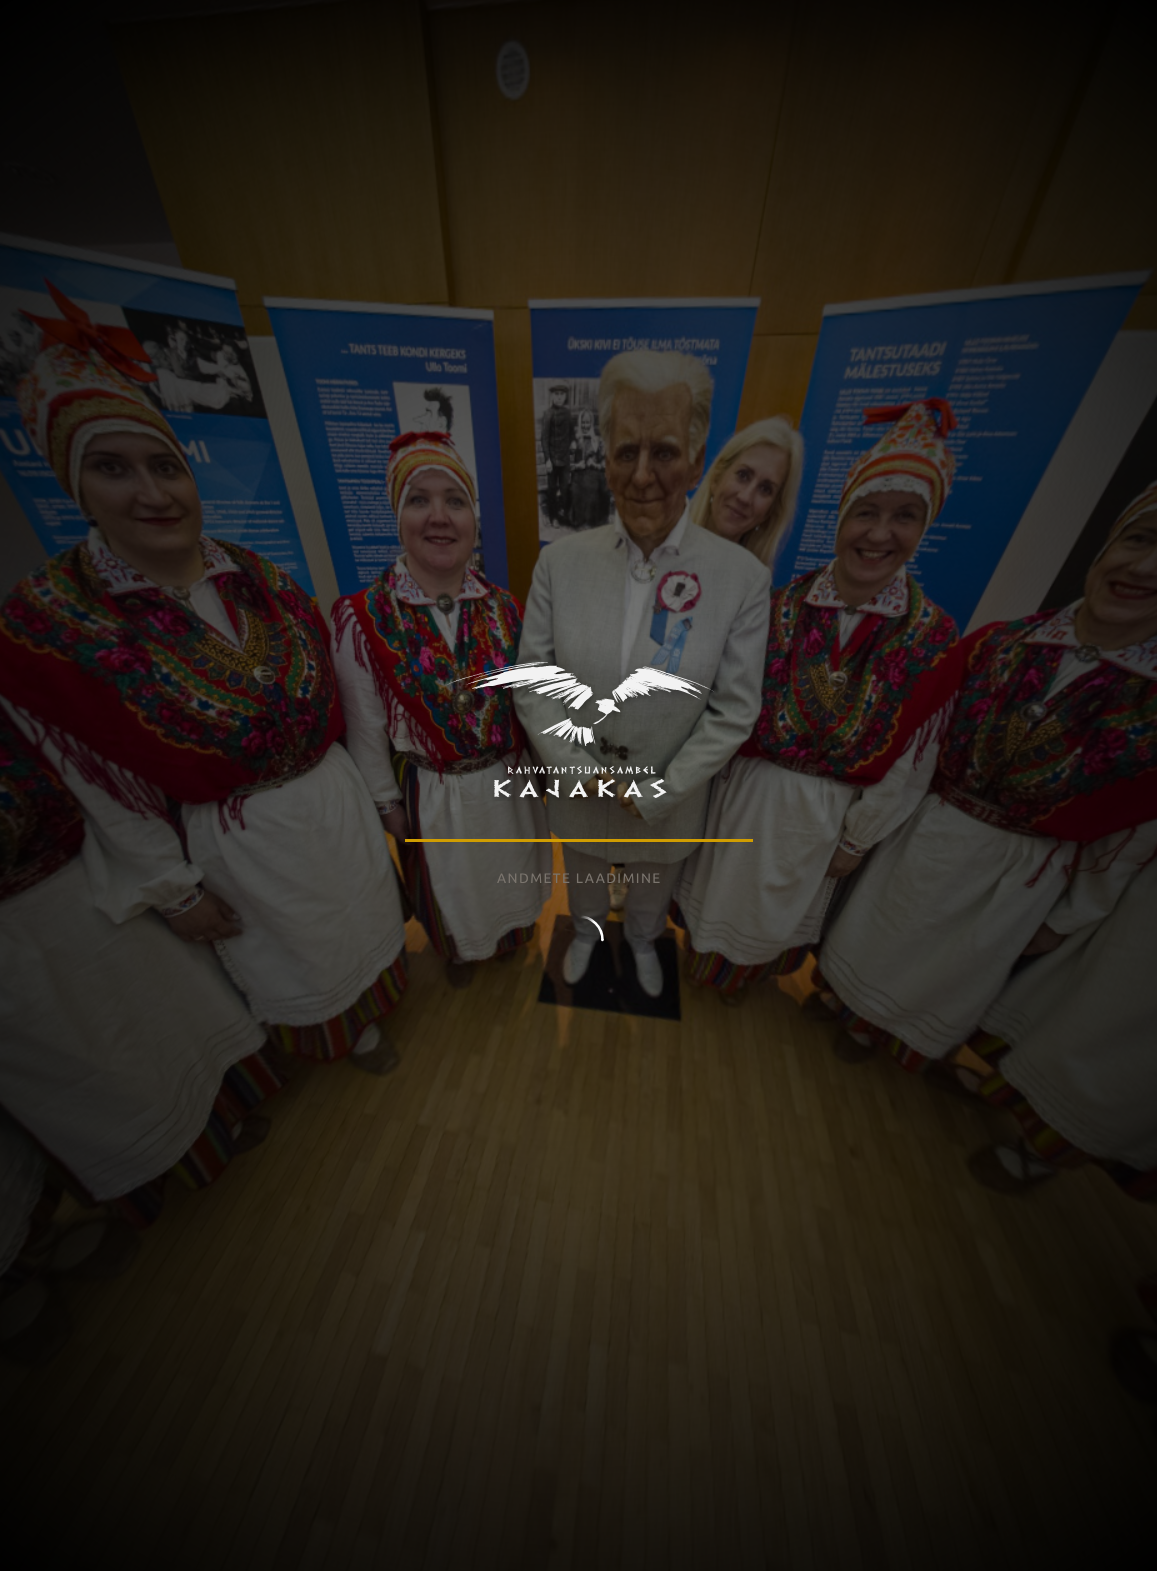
<svg xmlns="http://www.w3.org/2000/svg" width="1157" height="1571">
<style>
.a{font:13.75px Ubuntu;letter-spacing:1.4px;fill:#7a746d}
</style>
<defs>
<linearGradient id="g1" gradientUnits="userSpaceOnUse" x1="581" y1="916" x2="594" y2="922"><stop offset="0" stop-color="#fff" stop-opacity="0"/><stop offset="0.63" stop-color="#fff" stop-opacity="0.63"/><stop offset="1" stop-color="#fff"/></linearGradient>
</defs>
<rect width="100%" height="100%" fill="#fff"/>
<image href="1.png" x="0" y="0" width="1157" height="1571"/>
<image href="2.png" x="446" y="662" width="268" height="139"/>
<path fill="#d09d01" d="M405 839h348v3H405z"/>
<path fill="none" stroke="url(#g1)" stroke-width="2.6" d="M602.5 940c0-13-10.5-23.5-23.5-23.5"/>
<circle fill="#fff" cx="602.4" cy="940" r="1.3"/>
<text class="a" x="497" y="883">ANDMETE LAADIMINE</text>
</svg>
